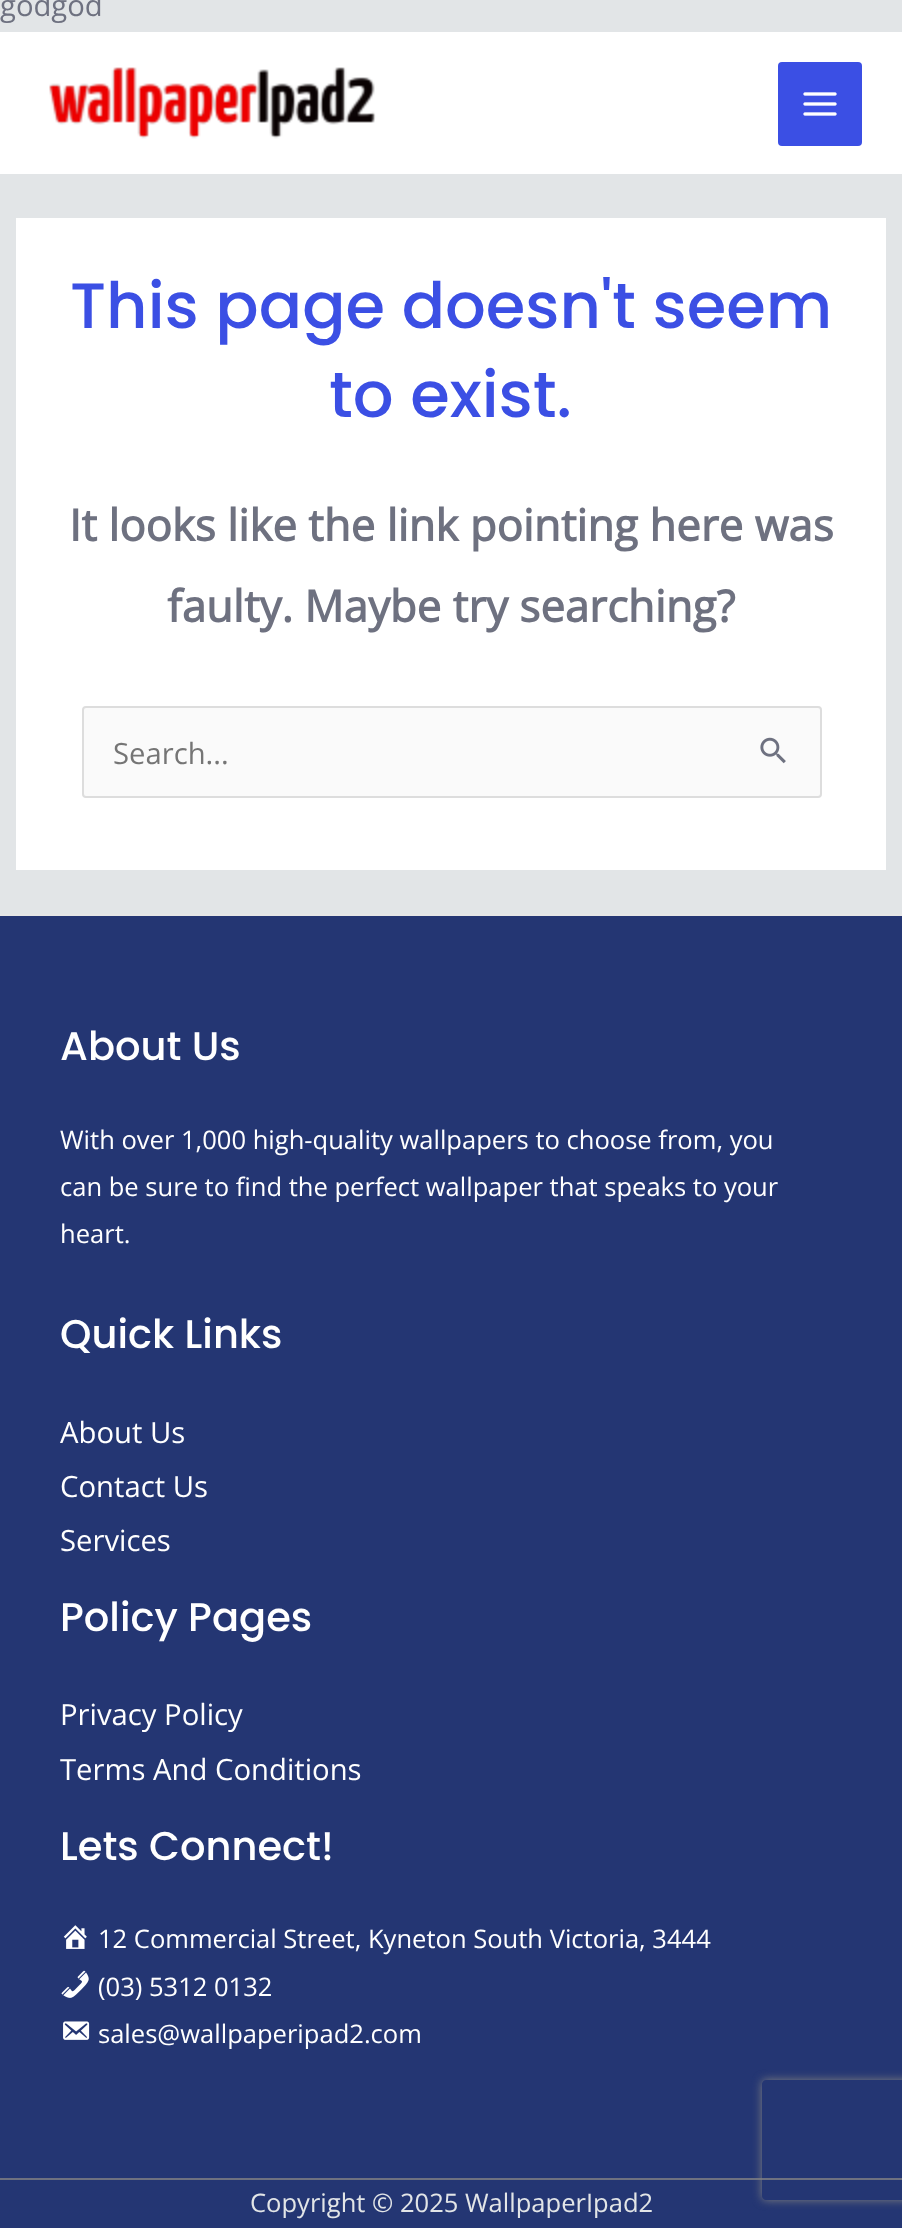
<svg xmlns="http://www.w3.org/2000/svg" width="902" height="2228">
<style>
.a{font:29.25px Open Sans;fill:#6e7180}
.b{font:500 64px Poppins;fill:#3b4fe4}
.c{font:bold 43.75px Open Sans;fill:#6e7180}
.d{font:29.25px Open Sans;fill:#757575}
.e{font:500 40px Poppins;fill:#fff}
.f{font:25.55px Open Sans;fill:#fff}
.g{font:29.25px Open Sans;fill:#fff}
.h{font:25.55px Open Sans;fill:#e2e5e7}
</style>
<defs>
<clipPath id="clip1"><path d="M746 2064h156v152h-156zm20 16h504c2 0 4 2 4 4v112c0 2-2 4-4 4h-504c-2 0-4-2-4-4v-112c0-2 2-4 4-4z" clip-rule="evenodd"/></clipPath>
</defs>
<rect width="100%" height="100%" fill="#e2e5e7"/>
<path fill="#fff" d="M0 32h902v142H0z"/>
<image href="1.png" x="49" y="67" width="327" height="72"/>
<rect fill="#3b4fe4" x="778" y="62" width="84" height="84" rx="4"/>
<image href="2.png" x="803" y="92" width="34" height="24"/>
<path fill="#fff" d="M16 218h870v652H16z"/>
<rect fill="#fafafa" stroke="#ddd" stroke-width="2" x="83" y="707" width="738" height="90" rx="3"/>
<image href="3.png" x="760" y="737" width="26" height="27"/>
<path fill="#243673" d="M0 916h902v1312H0z"/>
<path fill="#e6e6e6" d="M0 914h902v2H0z"/>
<image href="4.png" x="63" y="1925" width="24" height="24"/>
<image href="5.png" x="61" y="1970" width="28" height="28"/>
<image href="6.png" x="63" y="2021" width="27" height="19"/>
<path fill="#6e7180" d="M0 2178h902v2H0z"/>
<g clip-path="url(#clip1)">
<rect fill="#808080" filter="blur(5px)" x="762" y="2080" width="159" height="120" rx="4"/>
</g>
<text class="a" x="0" y="16">godgod</text>
<text class="b" x="70" y="328">This page doesn't seem</text>
<text class="b" x="329" y="417">to exist.</text>
<text class="c" x="69" y="541">It looks like the link pointing here was</text>
<text class="c" x="167" y="622">faulty. Maybe try searching?</text>
<text class="d" x="113" y="764">Search...</text>
<text class="e" x="60" y="1060">About Us</text>
<text class="f" x="60" y="1149">With over 1,000 high-quality wallpapers to choose from, you</text>
<text class="f" x="60" y="1196">can be sure to find the perfect wallpaper that speaks to your</text>
<text class="f" x="60" y="1243">heart.</text>
<text class="e" x="60" y="1348">Quick Links</text>
<text class="g" x="60" y="1443">About Us</text>
<text class="g" x="60" y="1497">Contact Us</text>
<text class="g" x="60" y="1551">Services</text>
<text class="e" x="60" y="1631">Policy Pages</text>
<text class="g" x="60" y="1725">Privacy Policy</text>
<text class="g" x="60" y="1780">Terms And Conditions</text>
<text class="e" x="60" y="1860">Lets Connect!</text>
<text class="f" x="98" y="1948">12 Commercial Street, Kyneton South Victoria, 3444</text>
<text class="f" x="98" y="1996">(03) 5312 0132</text>
<text class="f" x="98" y="2043">sales@wallpaperipad2.com</text>
<text class="h" x="250" y="2212">Copyright © 2025 WallpaperIpad2</text>
</svg>
